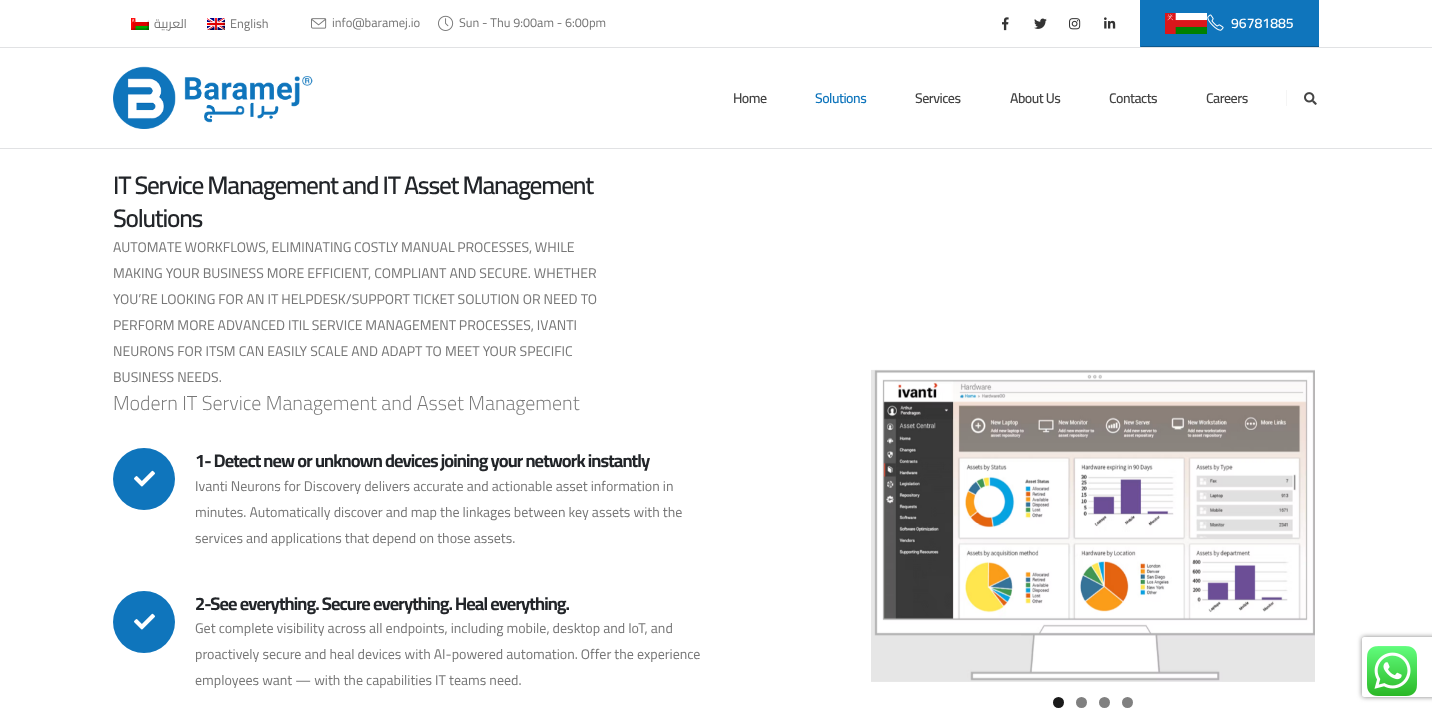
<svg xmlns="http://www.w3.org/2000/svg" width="1432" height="711">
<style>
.a{font:12.6px Cairo;direction:rtl;fill:#777}
.b{font:12.6px Cairo;fill:#777}
.c{font:600 14px Cairo;fill:#fff}
.d{font:600 14px Cairo;letter-spacing:-0.5px;fill:#444}
.e{font:600 14px Cairo;letter-spacing:-0.5px;fill:#0f75bc}
.f{font:600 25.25px Cairo;letter-spacing:-1.25px;fill:#222529}
.g{font:14px Cairo;fill:#777}
.h{font:300 20px Cairo;fill:#777}
.i{font:bold 18.2px Cairo;letter-spacing:-0.9px;fill:#222529}
</style>
<defs>
<clipPath id="clip1"><path d="M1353 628h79v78h-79zm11 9h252c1 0 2 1 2 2v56c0 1-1 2-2 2h-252c-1 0-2-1-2-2v-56c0-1 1-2 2-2z" clip-rule="evenodd"/></clipPath>
</defs>
<rect width="100%" height="100%" fill="#fff"/>
<path fill="#e1e2e4" d="M0 148h1432v1H0z"/>
<path fill="#e1e2e4" d="M0 47h1432v1H0z"/>
<image href="1.png" x="131" y="18" width="18" height="12"/>
<image href="2.png" x="207" y="18" width="18" height="12"/>
<image href="3.png" x="311" y="18" width="16" height="11"/>
<image href="4.png" x="438" y="15" width="16" height="16"/>
<image href="5.png" x="1002" y="17" width="7" height="14"/>
<image href="6.png" x="1034" y="18" width="13" height="11"/>
<image href="7.png" x="1069" y="18" width="12" height="12"/>
<image href="8.png" x="1104" y="17" width="12" height="12"/>
<path fill="#0f75bc" d="M1141 0h178v46H1141z"/>
<path fill="#0c588d" d="M1140 46h179v1H1140z"/>
<path fill="#0f75bc" d="M1140 0h1v47H1140z"/>
<image href="9.png" x="1165" y="13" width="42" height="21"/>
<image href="10.png" x="1207" y="14" width="17" height="17"/>
<image href="11.png" x="113" y="66" width="200" height="63"/>
<path fill="#f5f5f5" d="M1286 90h1v16H1286z"/>
<image href="12.png" x="1304" y="92" width="13" height="13"/>
<circle fill="#0f75bc" cx="144" cy="479" r="31"/>
<image href="13.png" x="134" y="470" width="21" height="17"/>
<circle fill="#0f75bc" cx="144" cy="622" r="31"/>
<image href="13.png" x="134" y="613" width="21" height="17"/>
<image href="14.png" x="871" y="369" width="444" height="313"/>
<circle fill="#1a1a1a" cx="1058.5" cy="702.5" r="5.5"/>
<circle fill="#808080" cx="1081.5" cy="702.5" r="5.5"/>
<circle fill="#808080" cx="1104.5" cy="702.5" r="5.5"/>
<circle fill="#808080" cx="1127.5" cy="702.5" r="5.5"/>
<g clip-path="url(#clip1)">
<rect fill="#808080" filter="blur(2.5px)" x="1362" y="637" width="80" height="60" rx="2"/>
</g>
<image href="15.png" x="1367" y="646" width="50" height="50"/>
<text class="a" x="187" y="28">العربية</text>
<text class="b" x="230" y="28">English</text>
<text class="b" x="332" y="27">info@baramej.io</text>
<text class="b" x="459" y="27">Sun - Thu 9:00am - 6:00pm</text>
<text class="c" x="1231" y="28">96781885</text>
<text class="d" x="733" y="103">Home</text>
<text class="e" x="815" y="103">Solutions</text>
<text class="d" x="915" y="103">Services</text>
<text class="d" x="1010" y="103">About Us</text>
<text class="d" x="1109" y="103">Contacts</text>
<text class="d" x="1206" y="103">Careers</text>
<text class="f" x="113" y="194">IT Service Management and IT Asset Management</text>
<text class="f" x="113" y="227">Solutions</text>
<text class="g" x="113" y="252" word-spacing="-0.5">AUTOMATE WORKFLOWS, ELIMINATING COSTLY MANUAL PROCESSES, WHILE</text>
<text class="g" x="113" y="278">MAKING YOUR BUSINESS MORE EFFICIENT, COMPLIANT AND SECURE. WHETHER</text>
<text class="g" x="113" y="304">YOU’RE LOOKING FOR AN IT HELPDESK/SUPPORT TICKET SOLUTION OR NEED TO</text>
<text class="g" x="113" y="330" word-spacing="-0.25">PERFORM MORE ADVANCED ITIL SERVICE MANAGEMENT PROCESSES, IVANTI</text>
<text class="g" x="113" y="356">NEURONS FOR ITSM CAN EASILY SCALE AND ADAPT TO MEET YOUR SPECIFIC</text>
<text class="g" x="113" y="382">BUSINESS NEEDS.</text>
<text class="h" x="113" y="410">Modern IT Service Management and Asset Management</text>
<text class="i" x="195" y="467">1- Detect new or unknown devices joining your network instantly</text>
<text class="g" x="195" y="491">Ivanti Neurons for Discovery delivers accurate and actionable asset information in</text>
<text class="g" x="195" y="517">minutes. Automatically discover and map the linkages between key assets with the</text>
<text class="g" x="195" y="543">services and applications that depend on those assets.</text>
<text class="i" x="195" y="610">2-See everything. Secure everything. Heal everything.</text>
<text class="g" x="195" y="633">Get complete visibility across all endpoints, including mobile, desktop and IoT, and</text>
<text class="g" x="195" y="659">proactively secure and heal devices with AI-powered automation. Offer the experience</text>
<text class="g" x="195" y="685">employees want — with the capabilities IT teams need.</text>
</svg>
